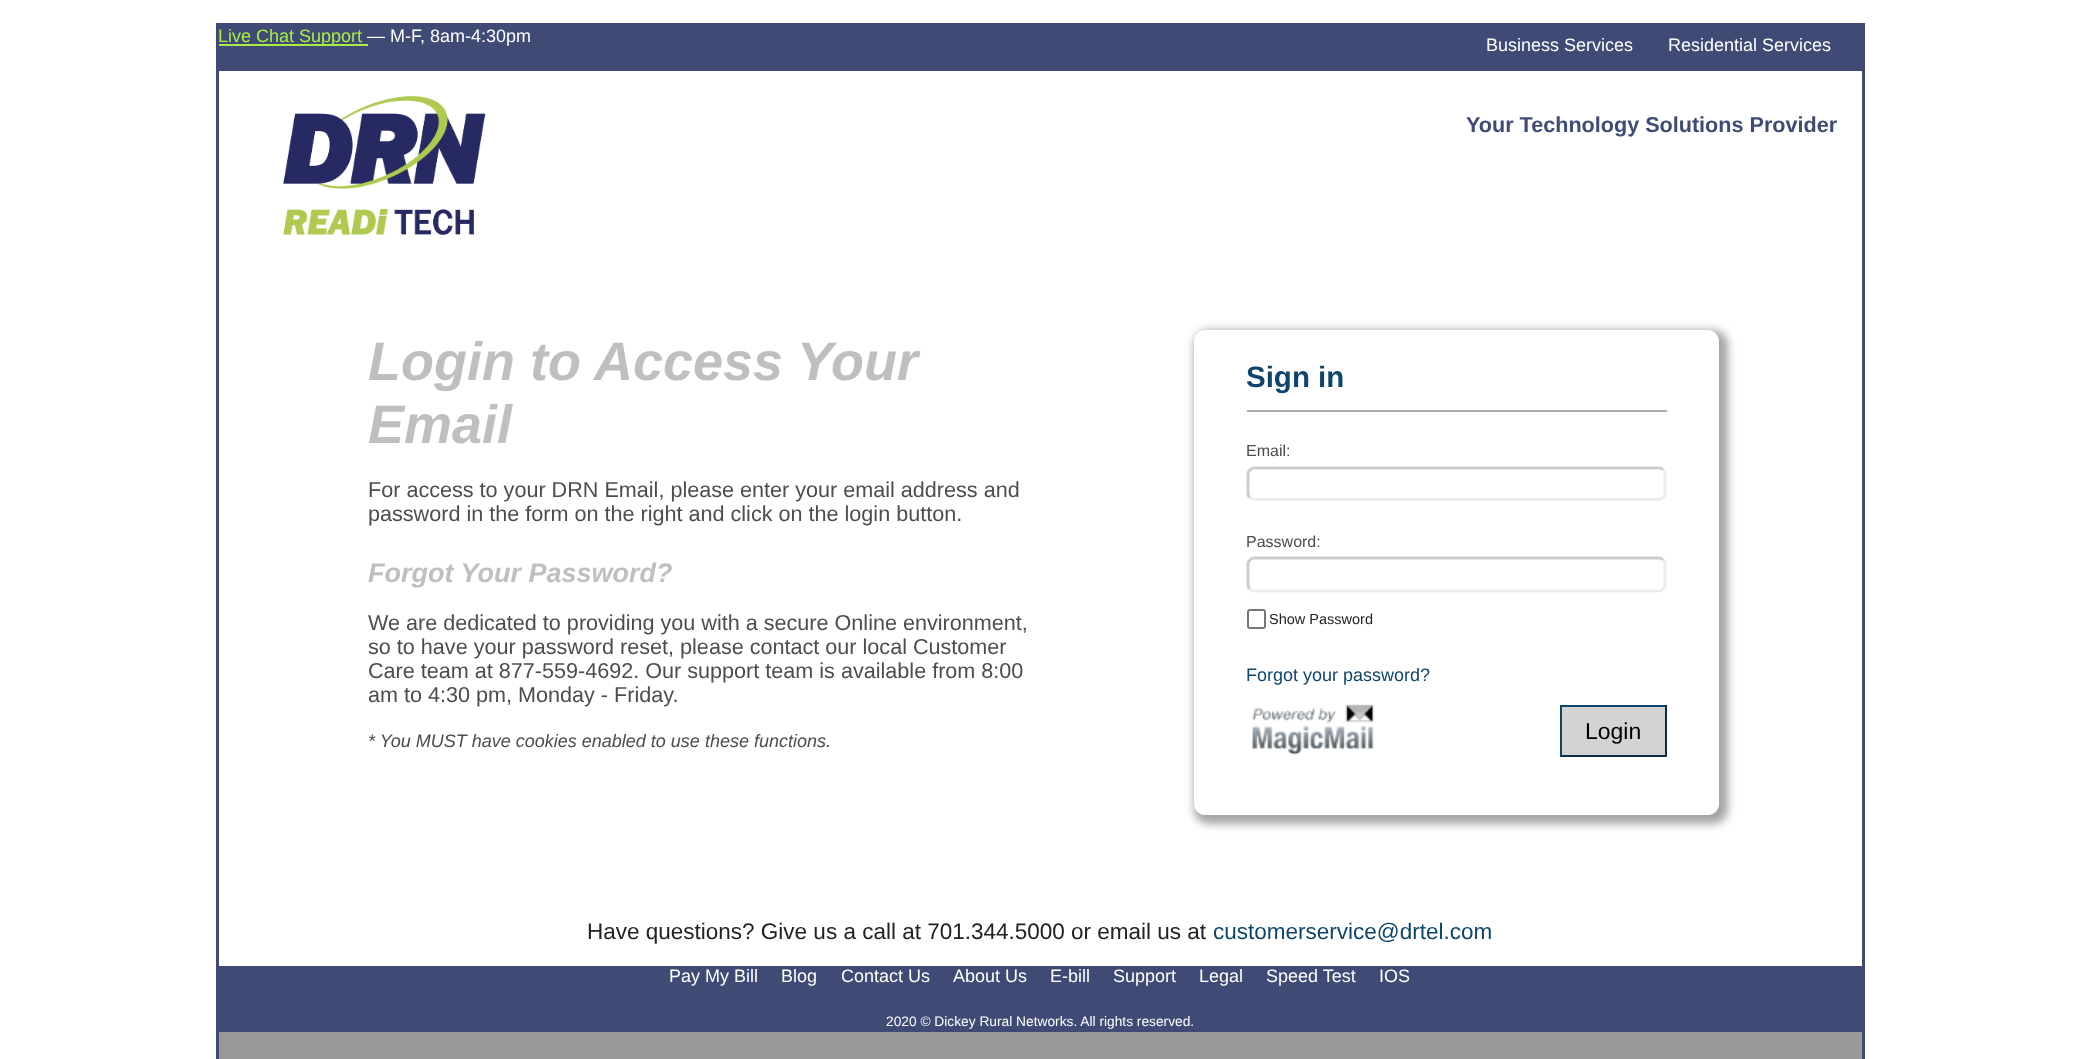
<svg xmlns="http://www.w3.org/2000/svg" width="2078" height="1059">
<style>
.a{font:18px Liberation Sans;fill:#ae4}
.b{font:18px Liberation Sans;fill:#fff}
.c{font:bold 21.6px Liberation Sans;fill:#3f4a75}
.d{font:italic bold 54px Liberation Sans;fill:#bfbfc1}
.e{font:21.6px Liberation Sans;fill:#4d4d4d}
.f{font:italic bold 27px Liberation Sans;fill:#bfbfc1}
.g{font:italic 18px Liberation Sans;fill:#4d4d4d}
.h{font:bold 29.5px Liberation Sans;fill:#10456b}
.i{font:16px Liberation Sans;fill:#4d4d4d}
.j{font:14.5px Liberation Sans;fill:#222}
.k{font:18px Liberation Sans;fill:#10456b}
.l{font:23px Liberation Sans;fill:#000}
.m{font:22.5px Liberation Sans;fill:#222}
.n{font:22.5px Liberation Sans;fill:#10456b}
.o{font:13.75px Liberation Sans;fill:#fff}
</style>
<defs>
<clipPath id="clip1"><path d="M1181 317h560v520h-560zm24 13h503c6 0 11 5 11 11v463c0 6-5 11-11 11h-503c-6 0-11-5-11-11v-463c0-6 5-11 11-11z" clip-rule="evenodd"/></clipPath>
</defs>
<rect width="100%" height="100%" fill="#fff"/>
<path fill="none" stroke="#3f4a75" stroke-width="3" d="M217.5 24.5h1646v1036H217.5z"/>
<path fill="#3f4a75" d="M219 26h1643v45H219z"/>
<path fill="#ae4" d="M219 44h149v2H219z"/>
<image href="1.png" x="283" y="96" width="203" height="139"/>
<g clip-path="url(#clip1)">
<rect fill="#69696999" filter="blur(4px)" x="1194" y="330" width="534" height="494" rx="15"/>
</g>
<path fill="#adaaad" d="M1247 410h420v2H1247z"/>
<path fill="none" stroke="#ededed" stroke-width="3" d="M1663 470c1.5 1 2 2.5 2 4v19.5c0 1.5-.5 3-2 4c-1 1.5-2.5 2-4 2h-405c-1.5 0-3-.5-4-2"/>
<path fill="none" stroke="#cdcdcd" stroke-width="3" d="M1250 497.5c-1.5-1-2-2.5-2-4v-19.5c0-1.5 .5-3 2-4c1-1.5 2.5-2 4-2h405c1.5 0 3 .5 4 2"/>
<path fill="none" stroke="#ededed" stroke-width="3" d="M1663 560c1.5 1 2 2.5 2 4v21c0 1.5-.5 3-2 4c-1 1.5-2.5 2-4 2h-405c-1.5 0-3-.5-4-2"/>
<path fill="none" stroke="#cdcdcd" stroke-width="3" d="M1250 589c-1.5-1-2-2.5-2-4v-21c0-1.5 .5-3 2-4c1-1.5 2.5-2 4-2h405c1.5 0 3 .5 4 2"/>
<rect fill="none" stroke="#767676" stroke-width="2" x="1248" y="610" width="17" height="18" rx="2"/>
<image href="2.png" x="1252" y="704" width="123" height="51"/>
<path fill="#d3d3d3" d="M1562 707h103v48H1562z"/>
<path fill="#10456b" d="M1560 705h107v2H1560z"/>
<path fill="#0b2e47" d="M1665 705h2v51H1665z"/>
<path fill="#0b2e47" d="M1560 755h107v2H1560z"/>
<path fill="#10456b" d="M1560 705h2v51H1560z"/>
<path fill="#3f4a75" d="M219 966h1643v66H219z"/>
<path fill="#999" d="M219 1032h1643v27H219z"/>
<text class="a" x="218" y="42">Live Chat Support</text>
<text class="b" x="367" y="42">— M-F, 8am-4:30pm</text>
<text class="b" x="1486" y="51">Business Services</text>
<text class="b" x="1668" y="51">Residential Services</text>
<text class="c" x="1466" y="132">Your Technology Solutions Provider</text>
<text class="d" x="368" y="380">Login to Access Your</text>
<text class="d" x="368" y="443">Email</text>
<text class="e" x="368" y="497">For access to your DRN Email, please enter your email address and</text>
<text class="e" x="368" y="521">password in the form on the right and click on the login button.</text>
<text class="f" x="368" y="582">Forgot Your Password?</text>
<text class="e" x="368" y="630">We are dedicated to providing you with a secure Online environment,</text>
<text class="e" x="368" y="654">so to have your password reset, please contact our local Customer</text>
<text class="e" x="368" y="678">Care team at 877-559-4692. Our support team is available from 8:00</text>
<text class="e" x="368" y="702">am to 4:30 pm, Monday - Friday.</text>
<text class="g" x="368" y="747">* You MUST have cookies enabled to use these functions.</text>
<text class="h" x="1246" y="387">Sign in</text>
<text class="i" x="1246" y="456">Email:</text>
<text class="i" x="1246" y="547">Password:</text>
<text class="j" x="1269" y="624">Show Password</text>
<text class="k" x="1246" y="681">Forgot your password?</text>
<text class="l" x="1585" y="739">Login</text>
<text class="m" x="587" y="939">Have questions? Give us a call at 701.344.5000 or email us at</text>
<text class="n" x="1213" y="939">customerservice@drtel.com</text>
<text class="b" x="669" y="982">Pay My Bill</text>
<text class="b" x="781" y="982">Blog</text>
<text class="b" x="841" y="982">Contact Us</text>
<text class="b" x="953" y="982">About Us</text>
<text class="b" x="1050" y="982">E-bill</text>
<text class="b" x="1113" y="982">Support</text>
<text class="b" x="1199" y="982">Legal</text>
<text class="b" x="1266" y="982">Speed Test</text>
<text class="b" x="1379" y="982">IOS</text>
<text class="o" x="886" y="1026">2020 © Dickey Rural Networks. All rights reserved.</text>
</svg>
